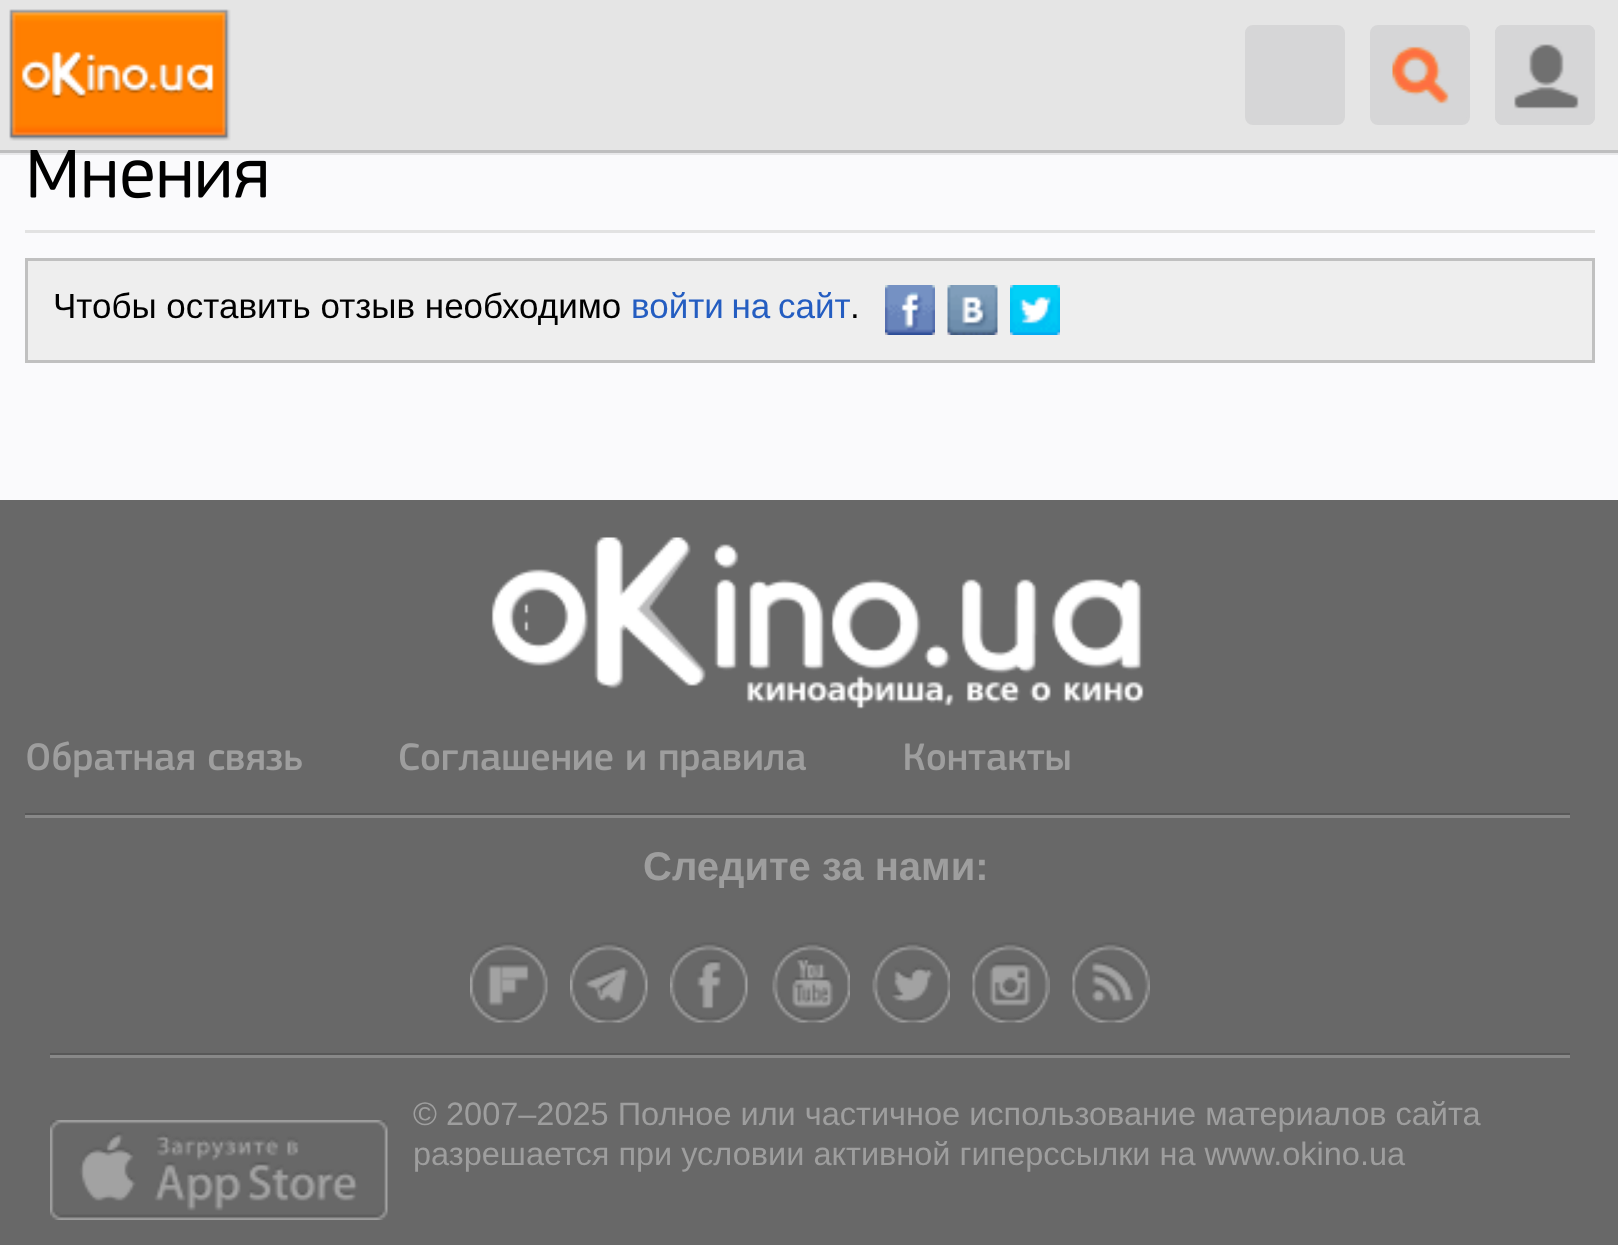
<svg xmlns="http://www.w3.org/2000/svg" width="1618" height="1245">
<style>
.a{font:35px Liberation Sans;fill:#000}
.b{font:35px Liberation Sans;fill:#245dc1}
.c{font:bold 40px Liberation Sans;fill:#9e9e9e}
.d{font:32.5px Liberation Sans;fill:#9e9e9e}
</style>
<rect width="100%" height="100%" fill="#fafafc"/>
<image href="4.png" x="30" y="150" width="236" height="49"/>
<path fill="#00000012" d="M0 150h1618v5H0z"/>
<path fill="#0000002e" d="M0 150h1618v3H0z"/>
<path fill="#e5e5e5" d="M0 0h1618v150H0z"/>
<image href="1.png" x="9" y="9" width="222" height="132"/>
<rect fill="#d6d6d7" stroke="#d6d6d7" stroke-width="3" x="1246.5" y="26.5" width="97" height="97" rx="6.5"/>
<rect fill="#d6d6d7" stroke="#d6d6d7" stroke-width="3" x="1371.5" y="26.5" width="97" height="97" rx="6.5"/>
<image href="2.png" x="1392" y="46" width="57" height="58"/>
<rect fill="#d6d6d7" x="1495" y="25" width="100" height="100" rx="8"/>
<image href="3.png" x="1514" y="44" width="65" height="65"/>
<rect fill="none" stroke="#d6d6d7" stroke-width="3" x="1496.5" y="26.5" width="97" height="97" rx="6.5"/>
<path fill="#e2e2e2" d="M25 230h1570v3H25z"/>
<path fill="#eee" stroke="#c0c0c0" stroke-width="3" d="M26.5 259.5h1567v102H26.5z"/>
<image href="5.png" x="885" y="285" width="50" height="50"/>
<image href="6.png" x="947" y="285" width="51" height="50"/>
<image href="7.png" x="1010" y="285" width="50" height="50"/>
<path fill="#686868" d="M0 500h1618v745H0z"/>
<image href="8.png" x="491" y="537" width="653" height="172"/>
<image href="9.png" x="27" y="741" width="275" height="37"/>
<image href="10.png" x="400" y="743" width="406" height="35"/>
<image href="11.png" x="905" y="743" width="165" height="28"/>
<path fill="#585858" d="M25 813h1545v2H25z"/>
<path fill="#888" d="M25 815h1545v3H25z"/>
<image href="12.png" x="470" y="942" width="78" height="81"/>
<image href="13.png" x="570" y="942" width="78" height="81"/>
<image href="14.png" x="670" y="942" width="78" height="81"/>
<image href="15.png" x="772" y="942" width="78" height="81"/>
<image href="16.png" x="872" y="942" width="78" height="81"/>
<image href="17.png" x="972" y="942" width="78" height="81"/>
<image href="18.png" x="1072" y="942" width="78" height="81"/>
<path fill="#585858" d="M50 1053h1520v2H50z"/>
<path fill="#888" d="M50 1055h1520v3H50z"/>
<image href="19.png" x="50" y="1120" width="338" height="100"/>
<text class="a" x="53" y="318">Чтобы оставить отзыв необходимо</text>
<text class="b" x="631" y="318" word-spacing="-2">войти на сайт</text>
<text class="a" x="850" y="318">.</text>
<text class="c" x="643" y="880">Следите за нами:</text>
<text class="d" x="413" y="1125">© 2007–2025 Полное или частичное использование материалов сайта</text>
<text class="d" x="413" y="1165">разрешается при условии активной гиперссылки на www.okino.ua</text>
</svg>
